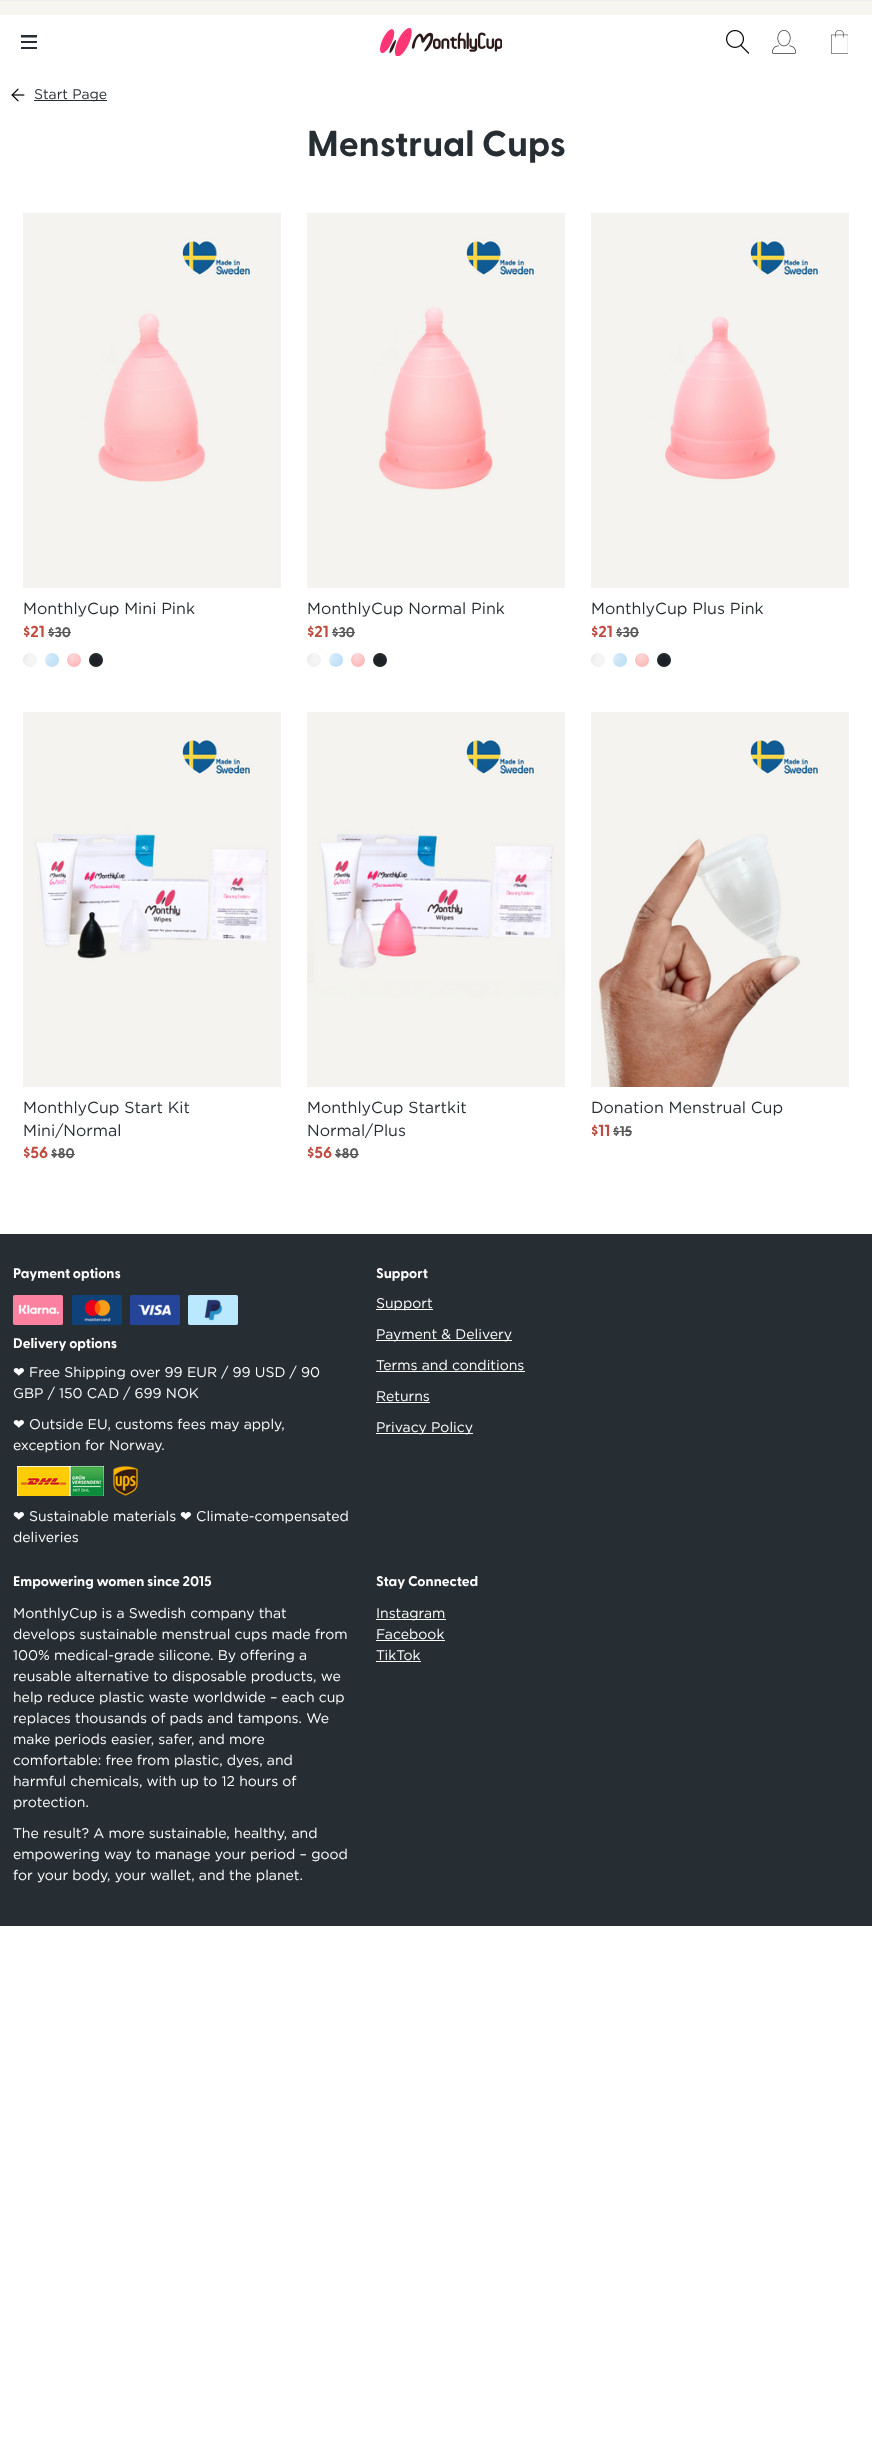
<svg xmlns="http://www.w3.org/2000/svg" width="872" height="2464">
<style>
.a{font:14px Gotham;fill:#272e33}
.b{font:bold 36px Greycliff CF;fill:#272e33}
.c{font:16px Gotham;fill:#272e33}
.d{font:bold 16px Greycliff CF;fill:#bf4c41}
.e{font:bold 14px Greycliff CF;fill:#595959}
.f{font:bold 14px Greycliff CF;fill:#fff}
.g{font:14px DejaVu Sans;fill:#fff}
.h{font:14px Gotham;fill:#fff}
</style>
<defs>
<clipPath id="clip1"><path d="M21 34h16v16H21z"/></clipPath>
</defs>
<rect width="100%" height="100%" fill="#fff"/>
<path fill="#f6f5ef" d="M0 1h872v14H0z"/>
<path fill="#eee" d="M0 0h872v1H0z"/>
<path fill="#272e33" d="M21 36h16v1H21z"/>
<g clip-path="url(#clip1)">
<path fill="none" stroke="#272e33" d="M15 37v-1.5h28.5v1.5z"/>
</g>
<path fill="#272e33" d="M21 41h16v2H21z"/>
<path fill="#272e33" d="M21 47h16v2H21z"/>
<image href="1.png" x="380" y="28" width="122" height="28"/>
<image href="2.png" x="726" y="30" width="23" height="24"/>
<image href="3.png" x="772" y="30" width="24" height="24"/>
<image href="4.png" x="831" y="30" width="17" height="24"/>
<image href="5.png" x="11" y="88" width="14" height="14"/>
<path fill="#272e33" d="M34 100h73v1H34z"/>
<image href="6.png" x="23" y="213" width="258" height="375"/>
<path fill="#595959" d="M48 632h23v1H48z"/>
<image href="7.png" x="23" y="653" width="14" height="14"/>
<image href="8.png" x="45" y="653" width="14" height="14"/>
<image href="9.png" x="67" y="653" width="14" height="14"/>
<image href="10.png" x="89" y="653" width="14" height="14"/>
<image href="11.png" x="307" y="213" width="258" height="375"/>
<path fill="#595959" d="M332 632h23v1H332z"/>
<image href="7.png" x="307" y="653" width="14" height="14"/>
<image href="12.png" x="329" y="653" width="14" height="14"/>
<image href="9.png" x="351" y="653" width="14" height="14"/>
<image href="13.png" x="373" y="653" width="14" height="14"/>
<image href="14.png" x="591" y="213" width="258" height="375"/>
<path fill="#595959" d="M616 632h23v1H616z"/>
<image href="7.png" x="591" y="653" width="14" height="14"/>
<image href="8.png" x="613" y="653" width="14" height="14"/>
<image href="15.png" x="635" y="653" width="14" height="14"/>
<image href="16.png" x="657" y="653" width="14" height="14"/>
<image href="17.png" x="23" y="712" width="258" height="375"/>
<path fill="#595959" d="M51 1154h24v1H51z"/>
<image href="18.png" x="307" y="712" width="258" height="375"/>
<path fill="#595959" d="M335 1154h24v1H335z"/>
<image href="19.png" x="591" y="712" width="258" height="375"/>
<path fill="#595959" d="M613 1131h19v1H613z"/>
<path fill="#272e33" d="M0 1234h872v692H0z"/>
<image href="20.png" x="13" y="1295" width="50" height="30"/>
<image href="21.png" x="72" y="1295" width="50" height="30"/>
<image href="22.png" x="130" y="1295" width="50" height="30"/>
<image href="23.png" x="188" y="1295" width="50" height="30"/>
<image href="24.png" x="17" y="1466" width="87" height="30"/>
<image href="25.png" x="113" y="1466" width="25" height="30"/>
<path fill="#fff" d="M376 1309h57v1H376z"/>
<path fill="#fff" d="M376 1340h136v1H376z"/>
<path fill="#fff" d="M376 1371h149v1H376z"/>
<path fill="#fff" d="M376 1402h54v1H376z"/>
<path fill="#fff" d="M376 1433h97v1H376z"/>
<path fill="#fff" d="M376 1619h70v1H376z"/>
<path fill="#fff" d="M376 1640h69v1H376z"/>
<path fill="#fff" d="M376 1661h45v1H376z"/>
<text class="a" x="34" y="99">Start Page</text>
<text class="b" x="307" y="156">Menstrual Cups</text>
<text class="c" x="23" y="614">MonthlyCup Mini Pink</text>
<text class="d" x="23" y="637">$21</text>
<text class="e" x="48" y="637">$30</text>
<text class="c" x="307" y="614">MonthlyCup Normal Pink</text>
<text class="d" x="307" y="637">$21</text>
<text class="e" x="332" y="637">$30</text>
<text class="c" x="591" y="614">MonthlyCup Plus Pink</text>
<text class="d" x="591" y="637">$21</text>
<text class="e" x="616" y="637">$30</text>
<text class="c" x="23" y="1113">MonthlyCup Start Kit</text>
<text class="c" x="23" y="1136">Mini/Normal</text>
<text class="d" x="23" y="1158">$56</text>
<text class="e" x="51" y="1158">$80</text>
<text class="c" x="307" y="1113">MonthlyCup Startkit</text>
<text class="c" x="307" y="1136">Normal/Plus</text>
<text class="d" x="307" y="1158">$56</text>
<text class="e" x="335" y="1158">$80</text>
<text class="c" x="591" y="1113">Donation Menstrual Cup</text>
<text class="d" x="591" y="1136">$11</text>
<text class="e" x="613" y="1136">$15</text>
<text class="f" x="13" y="1278">Payment options</text>
<text class="f" x="13" y="1348">Delivery options</text>
<text class="g" x="13" y="1377">❤︎</text>
<text class="h" x="29" y="1377">Free Shipping over 99 EUR / 99 USD / 90</text>
<text class="h" x="13" y="1398">GBP / 150 CAD / 699 NOK</text>
<text class="g" x="13" y="1429">❤︎</text>
<text class="h" x="29" y="1429">Outside EU, customs fees may apply,</text>
<text class="h" x="13" y="1450">exception for Norway.</text>
<text class="g" x="13" y="1521">❤︎</text>
<text class="h" x="29" y="1521">Sustainable materials</text>
<text class="g" x="180" y="1521">❤︎</text>
<text class="h" x="196" y="1521">Climate-compensated</text>
<text class="h" x="13" y="1542">deliveries</text>
<text class="f" x="376" y="1278">Support</text>
<text class="h" x="376" y="1308">Support</text>
<text class="h" x="376" y="1339">Payment &amp; Delivery</text>
<text class="h" x="376" y="1370">Terms and conditions</text>
<text class="h" x="376" y="1401">Returns</text>
<text class="h" x="376" y="1432">Privacy Policy</text>
<text class="f" x="13" y="1586">Empowering women since 2015</text>
<text class="h" x="13" y="1618">MonthlyCup is a Swedish company that</text>
<text class="h" x="13" y="1639">develops sustainable menstrual cups made from</text>
<text class="h" x="13" y="1660">100% medical-grade silicone. By offering a</text>
<text class="h" x="13" y="1681">reusable alternative to disposable products, we</text>
<text class="h" x="13" y="1702">help reduce plastic waste worldwide – each cup</text>
<text class="h" x="13" y="1723">replaces thousands of pads and tampons. We</text>
<text class="h" x="13" y="1744">make periods easier, safer, and more</text>
<text class="h" x="13" y="1765">comfortable: free from plastic, dyes, and</text>
<text class="h" x="13" y="1786">harmful chemicals, with up to 12 hours of</text>
<text class="h" x="13" y="1807">protection.</text>
<text class="h" x="13" y="1838">The result? A more sustainable, healthy, and</text>
<text class="h" x="13" y="1859">empowering way to manage your period – good</text>
<text class="h" x="13" y="1880">for your body, your wallet, and the planet.</text>
<text class="f" x="376" y="1586">Stay Connected</text>
<text class="h" x="376" y="1618">Instagram</text>
<text class="h" x="376" y="1639">Facebook</text>
<text class="h" x="376" y="1660">TikTok</text>
</svg>
